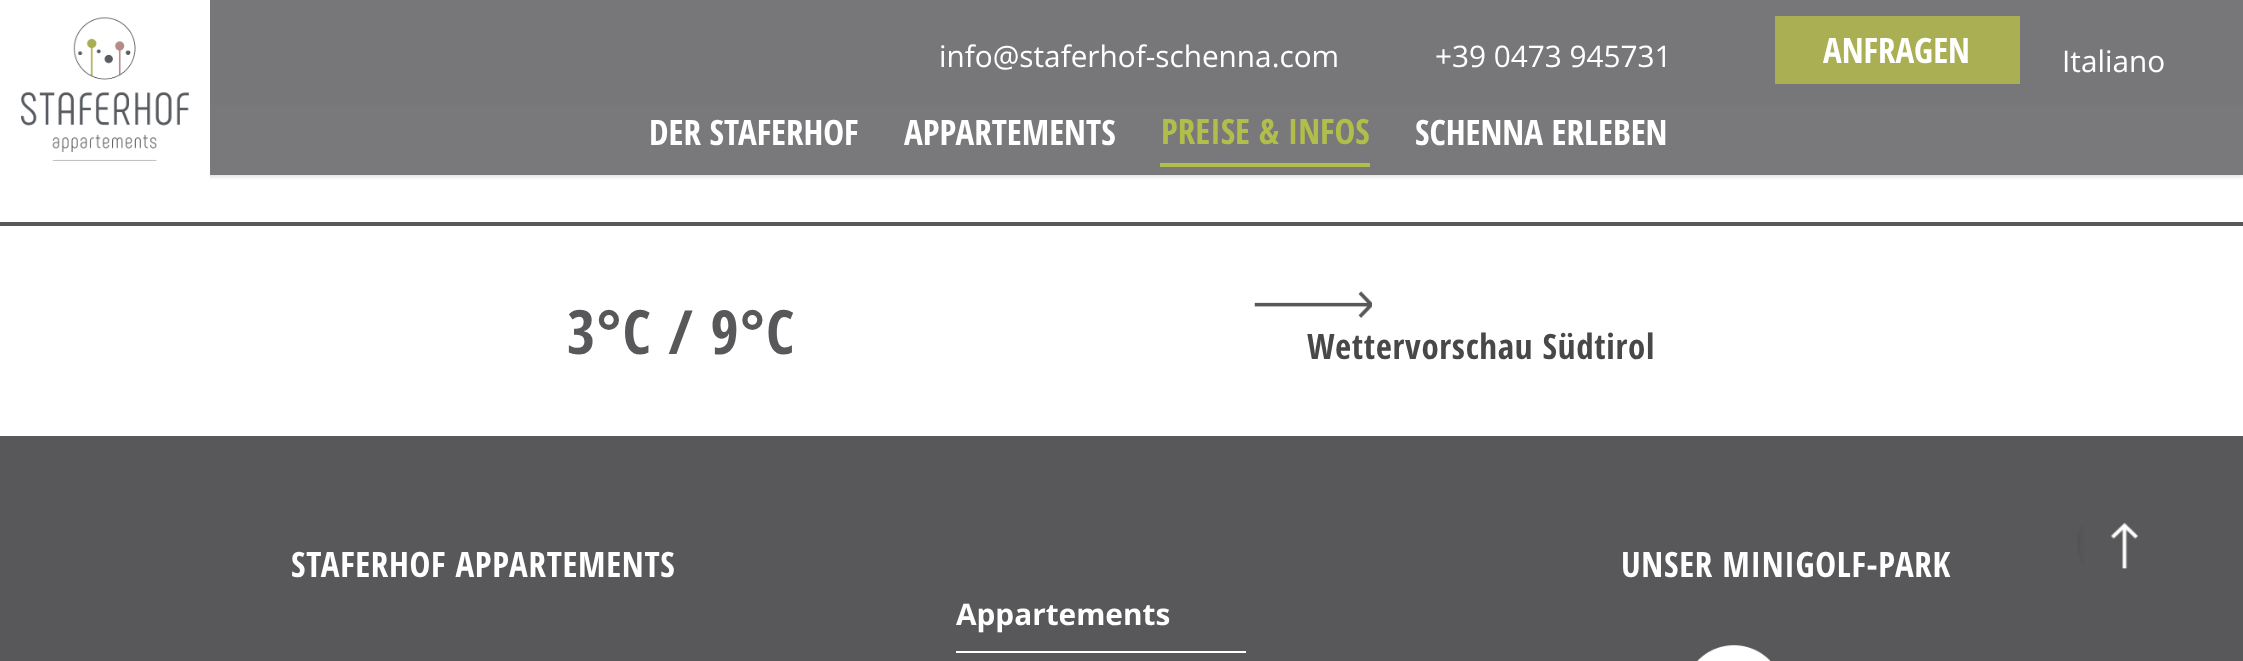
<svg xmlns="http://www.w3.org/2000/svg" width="2243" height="661">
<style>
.a{font:29.75px Open Sans;fill:#fff}
.b{font:bold 35px Open Sans Condensed;fill:#fff}
.c{font:bold 35px Open Sans Condensed;fill:#b1be4c}
.d{font:bold 61px Open Sans Condensed;letter-spacing:1.25px;fill:#58585a}
.e{font:bold 35px Open Sans Condensed;letter-spacing:0.7px;fill:#494848}
.f{font:bold 35px Open Sans Condensed;letter-spacing:0.7px;fill:#fff}
.g{font:bold 29.75px Open Sans;fill:#fff}
</style>
<defs>
<clipPath id="clip1"><path d="M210 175h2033v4H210z"/></clipPath>
</defs>
<rect width="100%" height="100%" fill="#fff"/>
<path fill="#f6f6f7" d="M210 0h2033v105H210z"/>
<g clip-path="url(#clip1)">
<path fill="#00000033" filter="blur(3.5px)" d="M0 0h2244v175H0z"/>
</g>
<path fill="#58585acc" d="M210 0h2033v175H210z"/>
<path fill="#fff" d="M0 175h210v4H0z"/>
<image href="1.png" x="21" y="17" width="168" height="144"/>
<path fill="#a9af52" d="M1775 16h245v68H1775z"/>
<path fill="#b1be4c" d="M1160 163h210v4H1160z"/>
<path fill="#58585a" d="M0 222h2243v4H0z"/>
<image href="2.png" x="1254" y="291" width="118" height="27"/>
<path fill="#58585a" d="M0 436h2243v225H0z"/>
<image href="3.png" x="2077" y="522" width="62" height="48"/>
<image href="4.png" x="1697" y="645" width="74" height="16"/>
<path fill="#fff" d="M956 651h290v2H956z"/>
<text class="a" x="939" y="67">info@staferhof-schenna.com</text>
<text class="a" x="1435" y="67">+39 0473 945731</text>
<text class="b" x="1823" y="63">ANFRAGEN</text>
<text class="b" x="649" y="145">DER STAFERHOF</text>
<text class="b" x="904" y="145">APPARTEMENTS</text>
<text class="c" x="1161" y="144">PREISE &amp; INFOS</text>
<text class="b" x="1415" y="145">SCHENNA ERLEBEN</text>
<text class="a" x="2062" y="72">Italiano</text>
<text class="d" x="567" y="354">3°C / 9°C</text>
<text class="e" x="1307" y="359">Wettervorschau Südtirol</text>
<text class="f" x="291" y="577">STAFERHOF APPARTEMENTS</text>
<text class="f" x="1621" y="577">UNSER MINIGOLF-PARK</text>
<text class="g" x="956" y="625">Appartements</text>
</svg>
